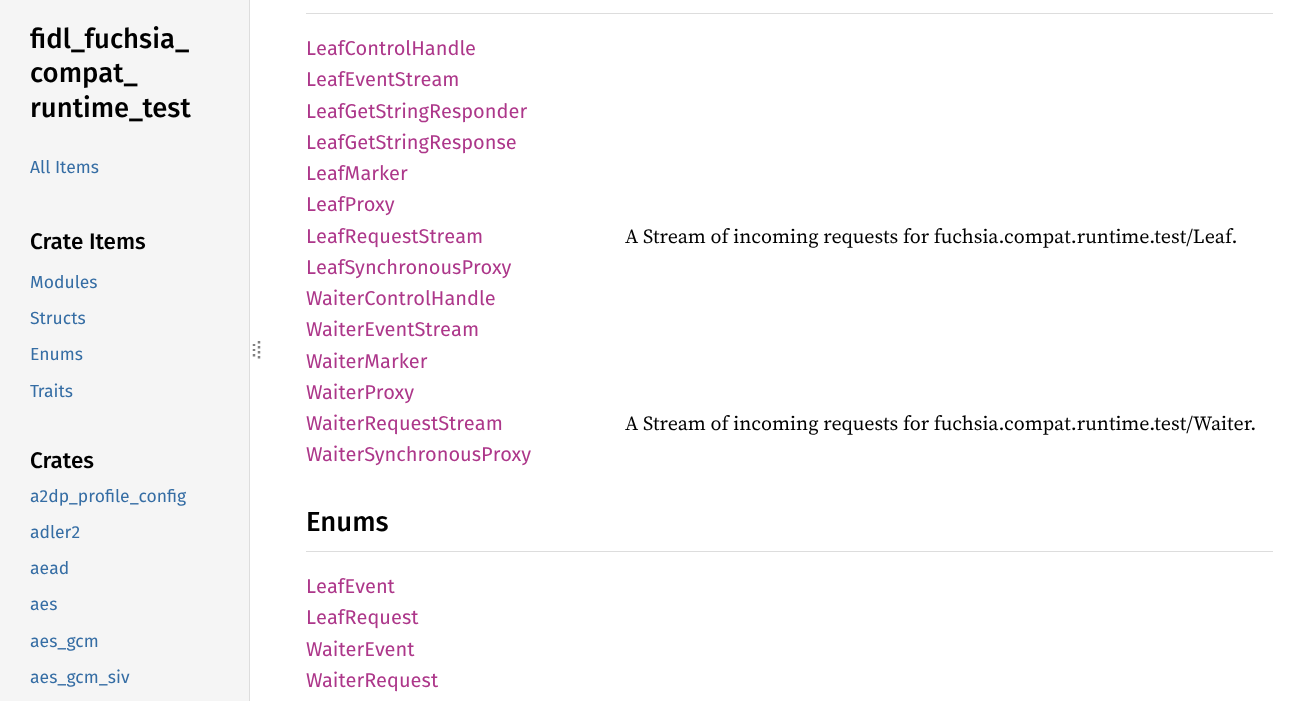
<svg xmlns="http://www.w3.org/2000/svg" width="1291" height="701">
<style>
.a{font:500 27.5px Fira Sans;fill:#000}
.b{font:17.5px Fira Sans;fill:#356da4}
.c{font:500 22.5px Fira Sans;fill:#000}
.d{font:20px Fira Sans;fill:#ad378a}
.e{font:20px 'Source Serif 4';fill:#000}
</style>
<rect width="100%" height="100%" fill="#fff"/>
<path fill="#f5f5f5" d="M0 0h249v701H0z"/>
<path fill="#ddd" d="M249 0h1v701H249z"/>
<path fill="none" stroke="#808080" stroke-width="2.5" d="M254 344v2m0 3v2m0 3v2.5"/>
<path fill="none" stroke="#808080" stroke-width="2.5" stroke-dasharray="2.5 2.5" d="M259 341v20"/>
<path fill="#ddd" d="M306 13h967v1H306z"/>
<path fill="#ddd" d="M306 551h967v1H306z"/>
<text class="a" x="30" y="48">fidl_fuchsia_</text>
<text class="a" x="30" y="82">compat_</text>
<text class="a" x="30" y="117">runtime_test</text>
<text class="b" x="30" y="173">All Items</text>
<text class="c" x="30" y="249">Crate Items</text>
<text class="b" x="30" y="288">Modules</text>
<text class="b" x="30" y="324">Structs</text>
<text class="b" x="30" y="360">Enums</text>
<text class="b" x="30" y="397">Traits</text>
<text class="c" x="30" y="468">Crates</text>
<text class="b" x="30" y="502">a2dp_profile_config</text>
<text class="b" x="30" y="538">adler2</text>
<text class="b" x="30" y="574">aead</text>
<text class="b" x="30" y="610">aes</text>
<text class="b" x="30" y="647">aes_gcm</text>
<text class="b" x="30" y="683">aes_gcm_siv</text>
<text class="d" x="306" y="55">LeafControlHandle</text>
<text class="d" x="306" y="86">LeafEventStream</text>
<text class="d" x="306" y="118">LeafGetStringResponder</text>
<text class="d" x="306" y="149">LeafGetStringResponse</text>
<text class="d" x="306" y="180">LeafMarker</text>
<text class="d" x="306" y="211">LeafProxy</text>
<text class="d" x="306" y="243">LeafRequestStream</text>
<text class="e" x="625" y="243">A Stream of incoming requests for fuchsia.compat.runtime.test/Leaf.</text>
<text class="d" x="306" y="274">LeafSynchronousProxy</text>
<text class="d" x="306" y="305">WaiterControlHandle</text>
<text class="d" x="306" y="336">WaiterEventStream</text>
<text class="d" x="306" y="368">WaiterMarker</text>
<text class="d" x="306" y="399">WaiterProxy</text>
<text class="d" x="306" y="430">WaiterRequestStream</text>
<text class="e" x="625" y="430">A Stream of incoming requests for fuchsia.compat.runtime.test/Waiter.</text>
<text class="d" x="306" y="461">WaiterSynchronousProxy</text>
<text class="a" x="306" y="531">Enums</text>
<text class="d" x="306" y="593">LeafEvent</text>
<text class="d" x="306" y="624">LeafRequest</text>
<text class="d" x="306" y="656">WaiterEvent</text>
<text class="d" x="306" y="687">WaiterRequest</text>
</svg>
